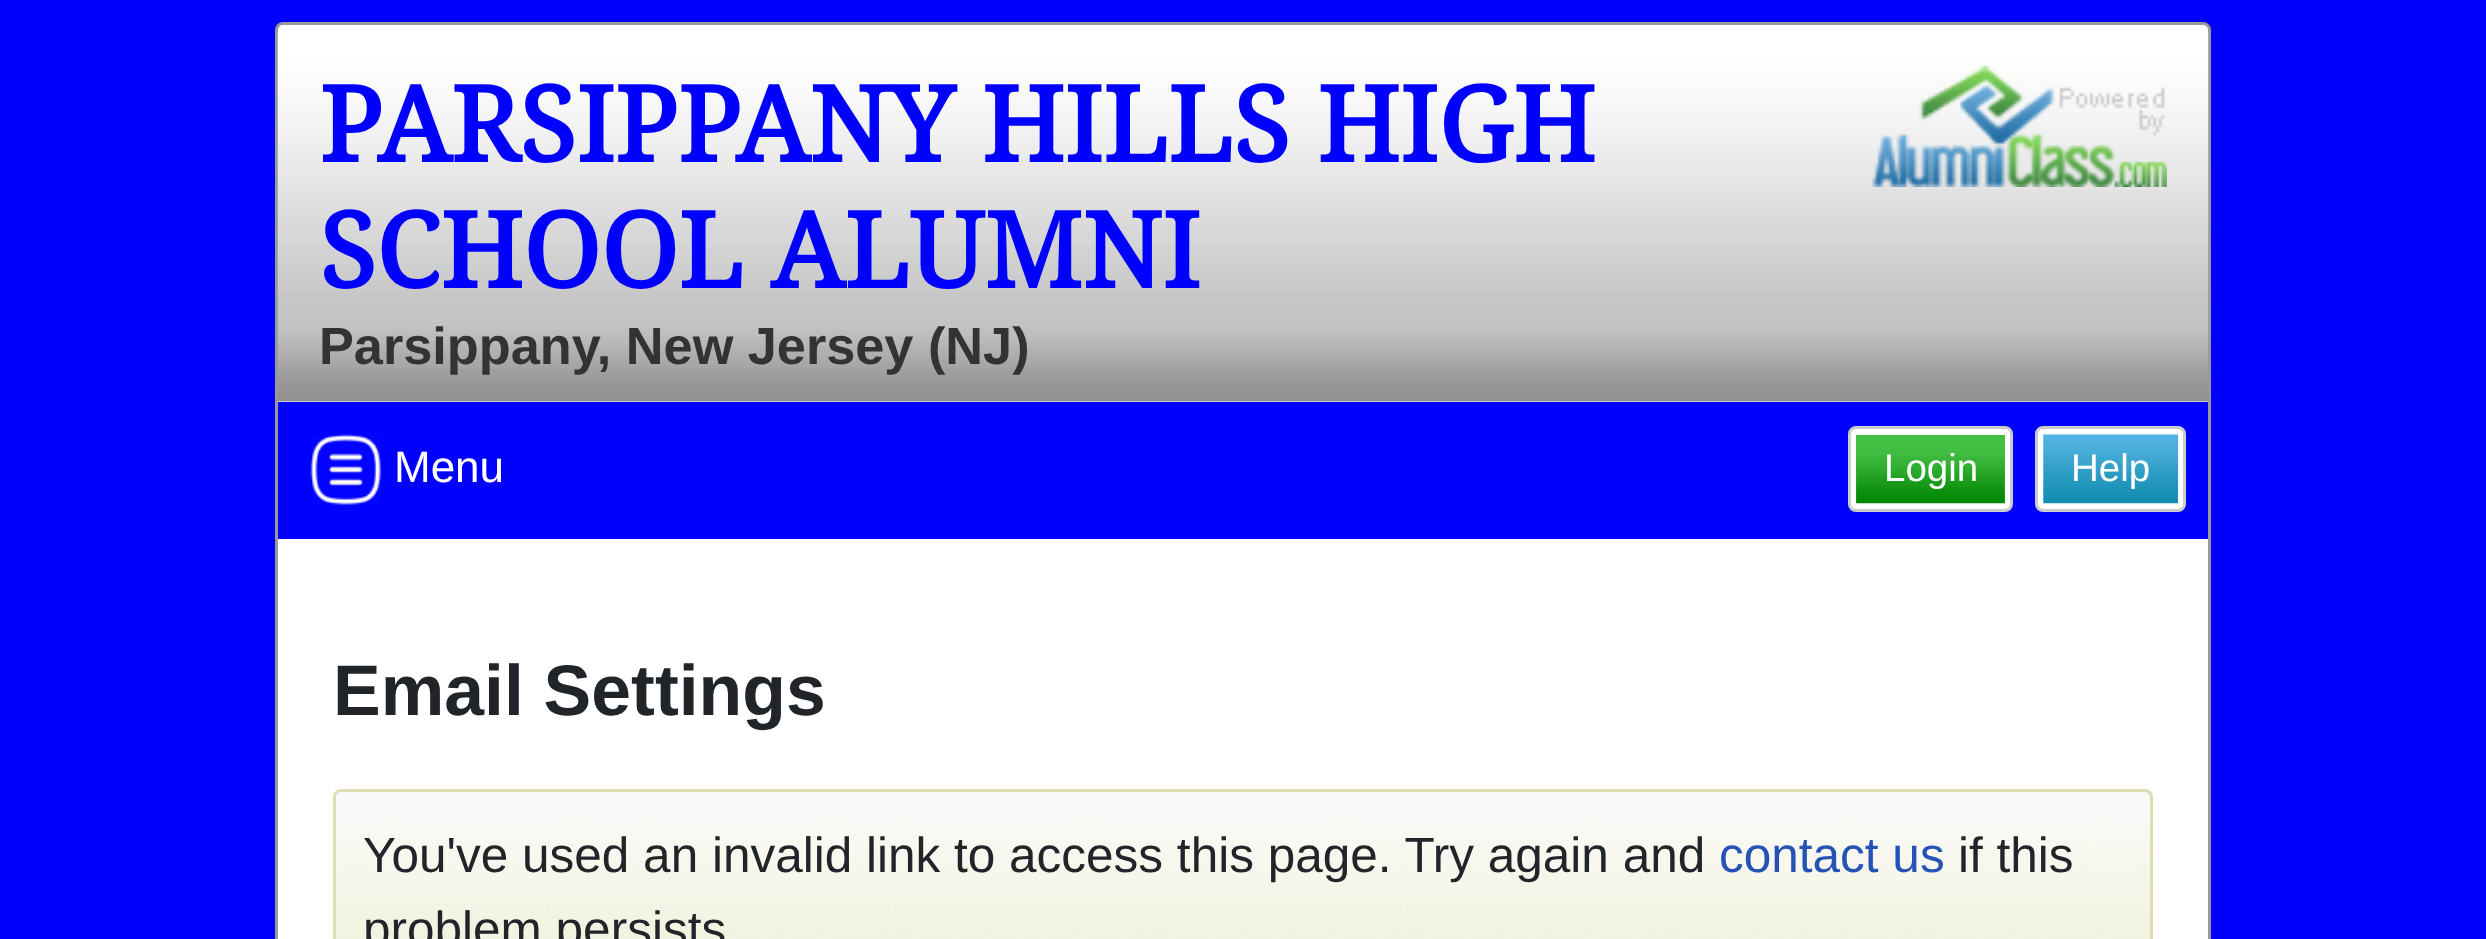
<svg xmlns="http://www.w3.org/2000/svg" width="2486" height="939">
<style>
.a{font:bold 104.5px Droid Serif;fill:#00f}
.b{font:bold 52.25px Liberation Sans;fill:#333}
.c{font:44px Liberation Sans;fill:#fff}
.d{font:38.5px Liberation Sans;fill:#fff}
.e{font:bold 71.5px Liberation Sans;fill:#212529}
.f{font:49.5px Liberation Sans;fill:#212529}
.g{font:49.5px Liberation Sans;fill:#2553b5}
</style>
<rect width="100%" height="100%" fill="#00f"/>
<rect fill="#fff" stroke="#999" stroke-width="3" x="276.5" y="23.5" width="1933" height="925" rx="6.5"/>
<image href="1.png" x="277" y="33" width="1932" height="369"/>
<image href="2.png" x="1872" y="66" width="295" height="121"/>
<path fill="#00f" d="M278 402h1930v137H278z"/>
<image href="3.png" x="310" y="434" width="71" height="71"/>
<rect fill="#fff" stroke="#ccc" stroke-width="3" x="1849.5" y="427.5" width="162" height="83" rx="6.5"/>
<path fill="#42be42" d="M1856 435h149v68H1856z"/>
<image href="4.png" x="1856" y="455" width="149" height="49"/>
<rect fill="#fff" stroke="#ccc" stroke-width="3" x="2036.5" y="427.5" width="148" height="83" rx="6.5"/>
<image href="5.png" x="2043" y="434" width="135" height="70"/>
<rect fill="#f9f9f9" x="333" y="789" width="1820" height="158" rx="8"/>
<image href="6.png" x="336" y="820" width="1814" height="119"/>
<rect fill="none" stroke="#dedeae" stroke-width="3" x="334.5" y="790.5" width="1817" height="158" rx="6.5"/>
<text class="a" x="319" y="162">PARSIPPANY HILLS HIGH</text>
<text class="a" x="319" y="288">SCHOOL ALUMNI</text>
<text class="b" x="319" y="364">Parsippany, New Jersey (NJ)</text>
<text class="c" x="394" y="482">Menu</text>
<text class="d" x="1884" y="481">Login</text>
<text class="d" x="2071" y="481">Help</text>
<text class="e" x="333" y="715">Email Settings</text>
<text class="f" x="363" y="872">You've used an invalid link to access this page. Try again and</text>
<text class="g" x="1719" y="872">contact us</text>
<text class="f" x="1958" y="872">if this</text>
<text class="f" x="363" y="946">problem persists</text>
</svg>
